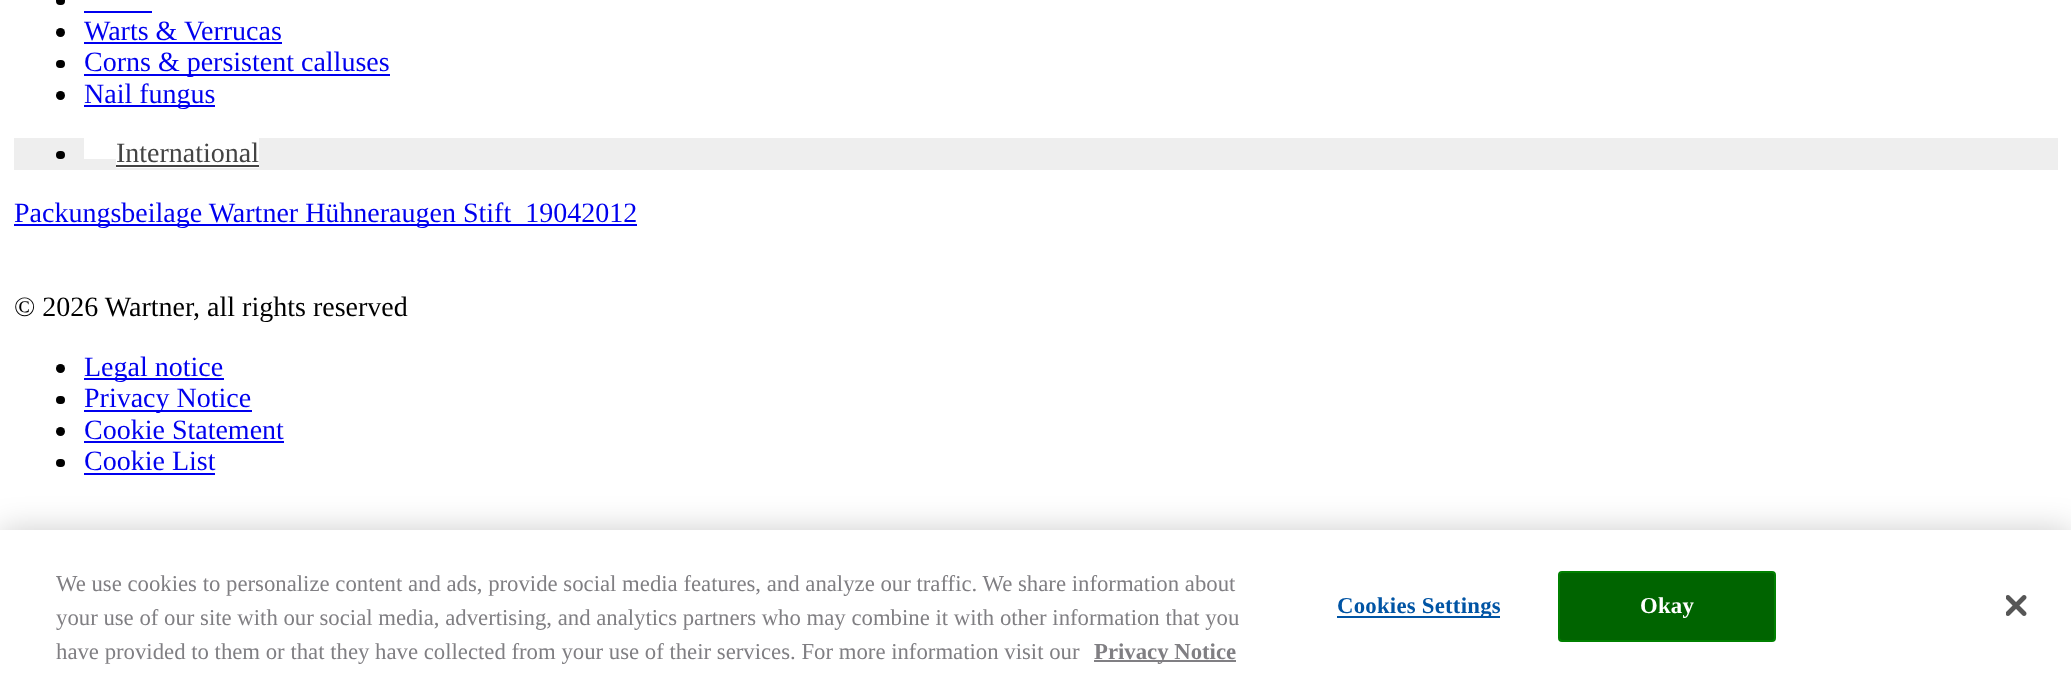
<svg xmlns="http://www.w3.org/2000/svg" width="2071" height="685">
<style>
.a{font:28px Liberation Serif;fill:#00e}
.b{font:28px Liberation Serif;fill:#444}
.c{font:28px Liberation Serif;fill:#000}
.d{font:22.75px Liberation Serif;fill:#807f83}
.e{font:bold 22.75px Liberation Serif;fill:#807f83}
.f{font:bold 22.75px Liberation Serif;letter-spacing:0.25px;fill:#0054a4}
.g{font:bold 22.75px Liberation Serif;letter-spacing:0.25px;fill:#fff}
</style>
<rect width="100%" height="100%" fill="#fff"/>
<rect fill="#000" x="56" y="-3" width="9" height="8" rx="4"/>
<path fill="#00e" d="M84 11h68v2H84z"/>
<circle fill="#000" cx="60.5" cy="32.5" r="4.5"/>
<path fill="#00e" d="M84 42h198v2H84z"/>
<rect fill="#000" x="56" y="60" width="9" height="8" rx="4"/>
<path fill="#00e" d="M84 74h306v2H84z"/>
<circle fill="#000" cx="60.5" cy="95.5" r="4.5"/>
<path fill="#00e" d="M84 105h131v2H84z"/>
<path fill="#eee" d="M14 138h2044v32H14z"/>
<rect fill="#000" x="56" y="151" width="9" height="8" rx="4"/>
<path fill="#fff" d="M84 138h32v21H84z"/>
<path fill="#fff" d="M116 138h143v30H116z"/>
<path fill="#444" d="M116 165h143v2H116z"/>
<path fill="#00e" d="M14 224h623v2H14z"/>
<circle fill="#000" cx="60.5" cy="368.5" r="4.5"/>
<path fill="#00e" d="M84 378h140v2H84z"/>
<rect fill="#000" x="56" y="396" width="9" height="8" rx="4"/>
<path fill="#00e" d="M84 410h168v2H84z"/>
<circle fill="#000" cx="60.5" cy="431.5" r="4.5"/>
<path fill="#00e" d="M84 441h200v2H84z"/>
<rect fill="#000" x="56" y="459" width="9" height="8" rx="4"/>
<path fill="#00e" d="M84 473h131v2H84z"/>
<path fill="#00000033" filter="blur(16px)" d="M0 530h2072v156H0z"/>
<path fill="#fff" d="M0 530h2071v155H0z"/>
<path fill="#807f83" d="M1094 660h142v2H1094z"/>
<path fill="#0054a4" d="M1337 616h163v2H1337z"/>
<rect fill="#006400" stroke="#008000" stroke-width="2" x="1559" y="572" width="216" height="69" rx="3"/>
<image href="1.png" x="2006" y="595" width="21" height="21"/>
<text class="a" x="84" y="40">Warts &amp; Verrucas</text>
<text class="a" x="84" y="71">Corns &amp; persistent calluses</text>
<text class="a" x="84" y="103">Nail fungus</text>
<text class="b" x="116" y="162">International</text>
<text class="a" x="14" y="222">Packungsbeilage Wartner Hühneraugen Stift_19042012</text>
<text class="c" x="14" y="316">© 2026 Wartner, all rights reserved</text>
<text class="a" x="84" y="376">Legal notice</text>
<text class="a" x="84" y="407">Privacy Notice</text>
<text class="a" x="84" y="439">Cookie Statement</text>
<text class="a" x="84" y="470">Cookie List</text>
<text class="d" x="56" y="591">We use cookies to personalize content and ads, provide social media features, and analyze our traffic. We share information about</text>
<text class="d" x="56" y="625">your use of our site with our social media, advertising, and analytics partners who may combine it with other information that you</text>
<text class="d" x="56" y="659">have provided to them or that they have collected from your use of their services. For more information visit our</text>
<text class="e" x="1094" y="659">Privacy Notice</text>
<text class="f" x="1337" y="613">Cookies Settings</text>
<text class="g" x="1640" y="613">Okay</text>
</svg>
